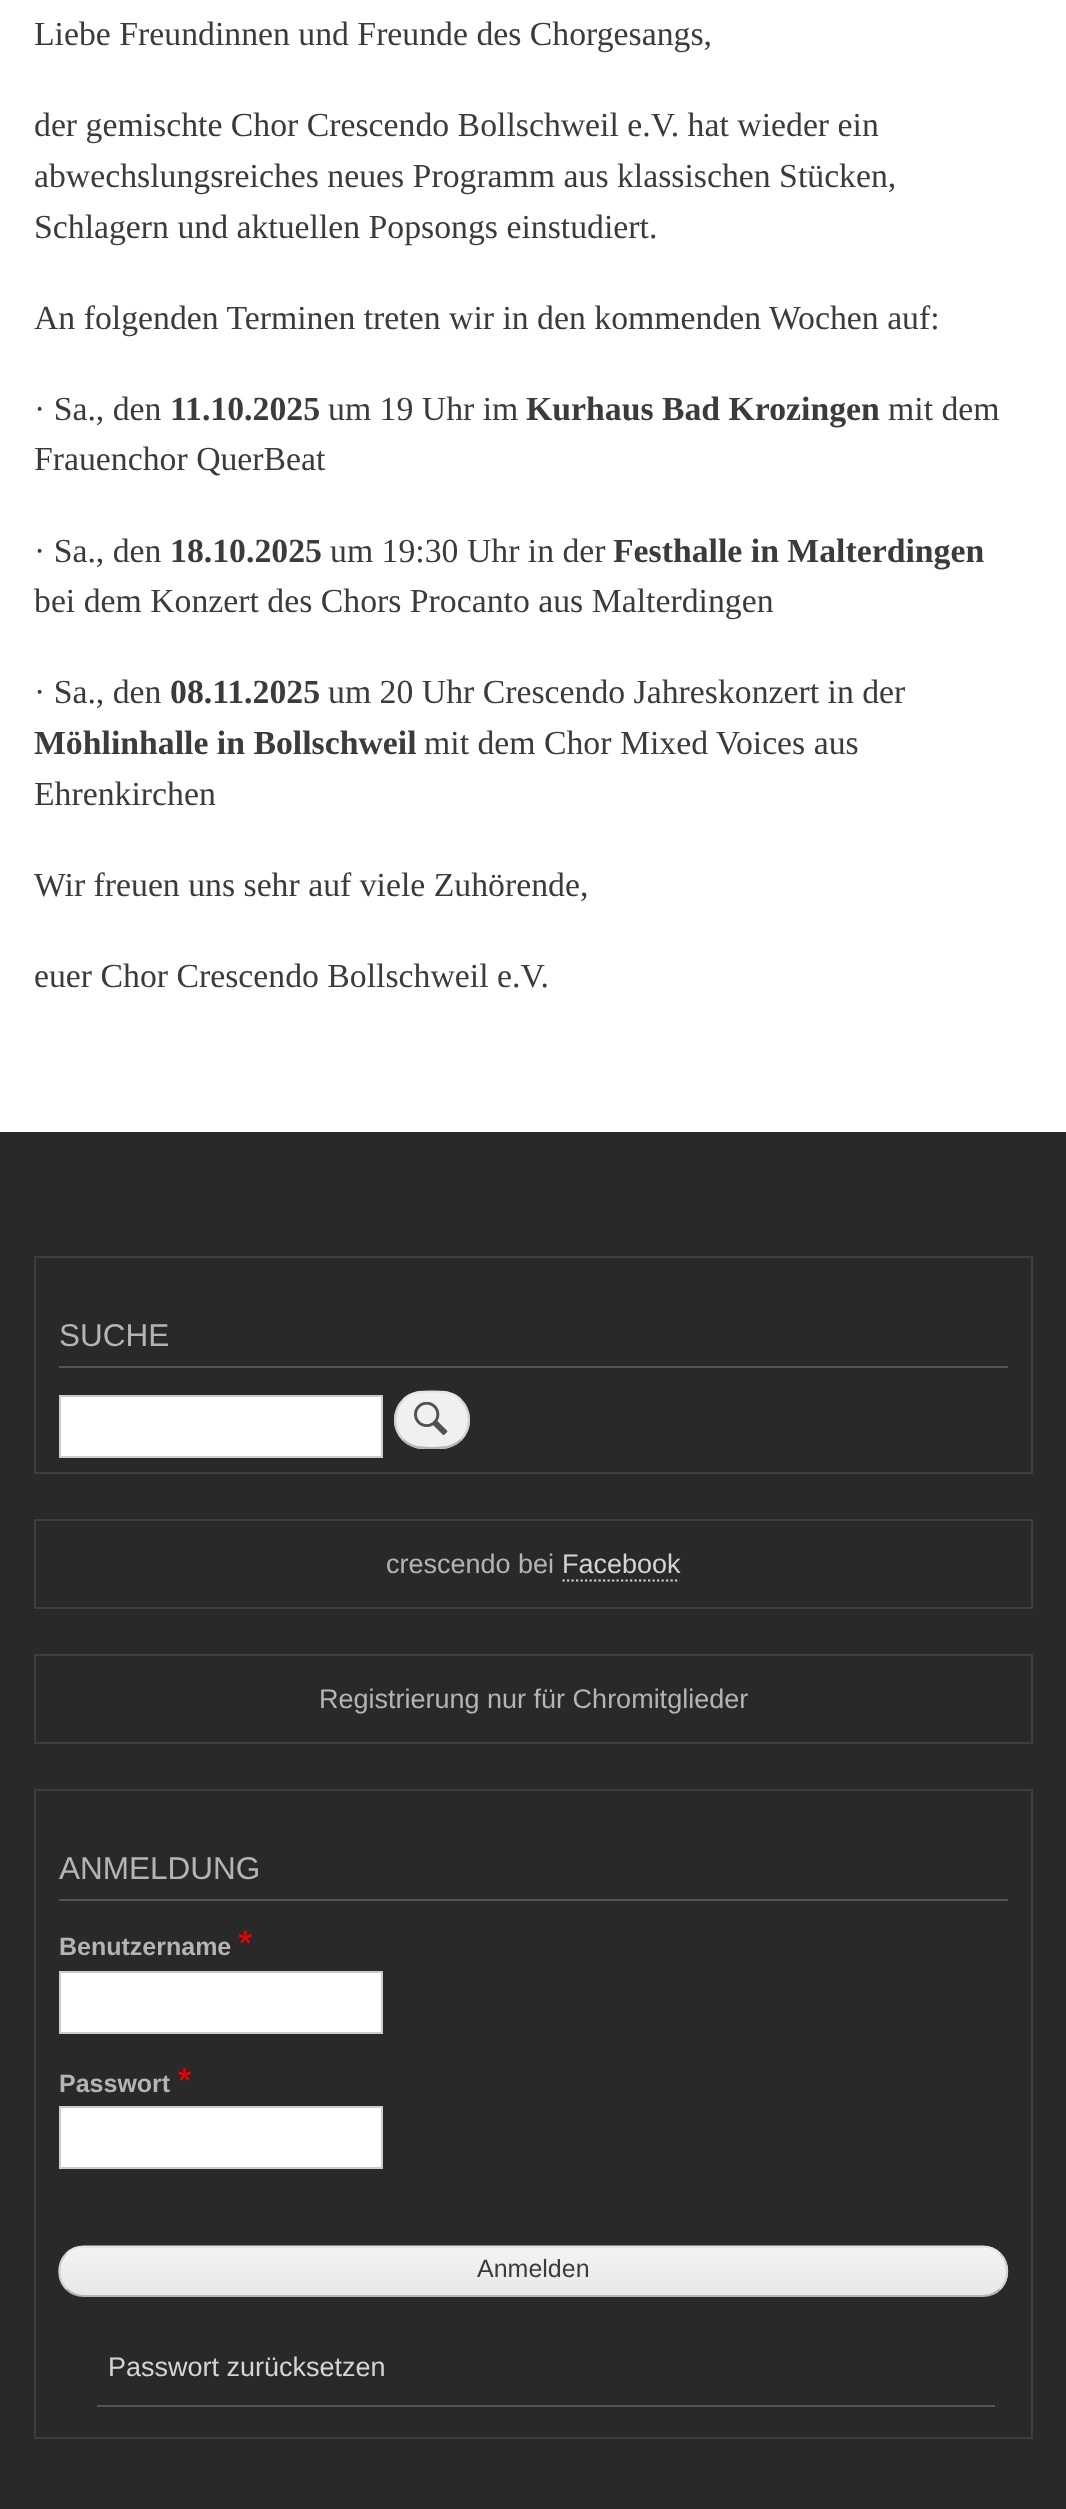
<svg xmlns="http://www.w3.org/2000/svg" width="1066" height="2509">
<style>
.a{font:33.75px Liberation Serif;fill:#3b3b3b}
.b{font:bold 33.75px Liberation Serif;fill:#3b3b3b}
.c{font:31.5px Liberation Sans;fill:#b4b4b4}
.d{font:27px Liberation Sans;fill:#b4b4b4}
.e{font:27px Liberation Sans;fill:#d4d4d4}
.f{font:bold 25px Liberation Sans;fill:#b4b4b4}
.g{font:25px Liberation Sans;fill:#3b3b3b}
</style>
<defs>
<clipPath id="clip1"><rect x="59" y="2246" width="949" height="51" rx="25"/></clipPath>
<linearGradient id="g1" gradientUnits="userSpaceOnUse" x1="533" y1="2201" x2="533" y2="2248"><stop offset="0" stop-color="#f3f3f3"/><stop offset="1" stop-color="#e8e8e8"/></linearGradient>
<linearGradient id="g2" gradientUnits="userSpaceOnUse" x1="533" y1="2248" x2="533" y2="2295"><stop offset="0" stop-color="#f3f3f3"/><stop offset="1" stop-color="#e8e8e8"/></linearGradient>
</defs>
<rect width="100%" height="100%" fill="#fff"/>
<path fill="#292929" d="M0 1132h1066v1377H0z"/>
<path fill="none" stroke="#3e3e3e" stroke-width="2" d="M35 1257h997v216H35z"/>
<path fill="#555" d="M59 1366h949v2H59z"/>
<path fill="#fff" stroke="#ccc" stroke-width="2" d="M60 1396h322v61H60z"/>
<rect fill="#f0f0f0" x="394" y="1391" width="76" height="58" rx="29"/>
<image href="1.png" x="414" y="1402" width="34" height="33"/>
<path fill="none" stroke="#e4e4e4" stroke-width="2.2" d="M403 1400c8-8.5 18-8.5 29-8.5c11 0 21 0 29 8.5"/>
<path fill="none" stroke="#d2d2d2" stroke-width="2.2" d="M461 1400c10.5 10.5 10.5 29 0 39.5"/>
<path fill="none" stroke="#b4b4b4" stroke-width="2.2" d="M461 1439.5c-8 8.5-18 8.5-29 8.5c-11 0-21 0-29-8.5"/>
<path fill="none" stroke="#d2d2d2" stroke-width="2.2" d="M403 1439.5c-10.5-10.5-10.5-29 0-39.5"/>
<path fill="none" stroke="#3e3e3e" stroke-width="2" d="M35 1520h997v88H35z"/>
<path fill="none" stroke="#d4d4d4" stroke-width="2.2" stroke-dasharray="2.25 2.25" d="M562.5 1580.5h117"/>
<path fill="none" stroke="#3e3e3e" stroke-width="2" d="M35 1655h997v88H35z"/>
<path fill="none" stroke="#3e3e3e" stroke-width="2" d="M35 1790h997v648H35z"/>
<path fill="#555" d="M59 1899h949v2H59z"/>
<image href="2.png" x="239" y="1931" width="13" height="13"/>
<path fill="#fff" stroke="#ccc" stroke-width="2" d="M60 1972h322v61H60z"/>
<image href="3.png" x="178" y="2068" width="13" height="13"/>
<path fill="#fff" stroke="#ccc" stroke-width="2" d="M60 2107h322v61H60z"/>
<g clip-path="url(#clip1)">
<path fill="url(#g1)" d="M74 2246h919v2H74z"/>
<path fill="url(#g2)" d="M59 2248h949v47H59z"/>
</g>
<path fill="none" stroke="#e4e4e4" stroke-width="2.2" d="M66.5 2253.5c4.5-4.5 10.5-7 17-7h899.5c6.5 0 12.5 2.5 17 7"/>
<path fill="none" stroke="#d2d2d2" stroke-width="2.2" d="M1000 2253.5c9.5 9.5 9.5 26 0 35.5"/>
<path fill="none" stroke="#b4b4b4" stroke-width="2.2" d="M1000 2289c-4.5 4.5-10.5 7-17 7h-899.5c-6.5 0-12.5-2.5-17-7"/>
<path fill="none" stroke="#d2d2d2" stroke-width="2.2" d="M66.5 2289c-9.5-9.5-9.5-26 0-35.5"/>
<path fill="#555" d="M97 2405h898v2H97z"/>
<text class="a" x="34" y="45">Liebe Freundinnen und Freunde des Chorgesangs,</text>
<text class="a" x="34" y="136">der gemischte Chor Crescendo Bollschweil e.V. hat wieder ein</text>
<text class="a" x="34" y="187">abwechslungsreiches neues Programm aus klassischen Stücken,</text>
<text class="a" x="34" y="238">Schlagern und aktuellen Popsongs einstudiert.</text>
<text class="a" x="34" y="329">An folgenden Terminen treten wir in den kommenden Wochen auf:</text>
<text class="a" x="34" y="420">· Sa., den</text>
<text class="b" x="170" y="420">11.10.2025</text>
<text class="a" x="328" y="420">um 19 Uhr im</text>
<text class="b" x="526" y="420">Kurhaus Bad Krozingen</text>
<text class="a" x="888" y="420">mit dem</text>
<text class="a" x="34" y="470">Frauenchor QuerBeat</text>
<text class="a" x="34" y="562">· Sa., den</text>
<text class="b" x="170" y="562">18.10.2025</text>
<text class="a" x="330" y="562">um 19:30 Uhr in der</text>
<text class="b" x="613" y="562">Festhalle in Malterdingen</text>
<text class="a" x="34" y="612">bei dem Konzert des Chors Procanto aus Malterdingen</text>
<text class="a" x="34" y="703">· Sa., den</text>
<text class="b" x="170" y="703">08.11.2025</text>
<text class="a" x="328" y="703">um 20 Uhr Crescendo Jahreskonzert in der</text>
<text class="b" x="34" y="754">Möhlinhalle in Bollschweil</text>
<text class="a" x="424" y="754">mit dem Chor Mixed Voices aus</text>
<text class="a" x="34" y="805">Ehrenkirchen</text>
<text class="a" x="34" y="896">Wir freuen uns sehr auf viele Zuhörende,</text>
<text class="a" x="34" y="987">euer Chor Crescendo Bollschweil e.V.</text>
<text class="c" x="59" y="1346">SUCHE</text>
<text class="d" x="386" y="1573">crescendo bei</text>
<text class="e" x="562" y="1573">Facebook</text>
<text class="d" x="319" y="1708">Registrierung nur für Chromitglieder</text>
<text class="c" x="59" y="1879">ANMELDUNG</text>
<text class="f" x="59" y="1955">Benutzername</text>
<text class="f" x="59" y="2092">Passwort</text>
<text class="g" x="477" y="2277">Anmelden</text>
<text class="e" x="108" y="2376">Passwort zurücksetzen</text>
</svg>
